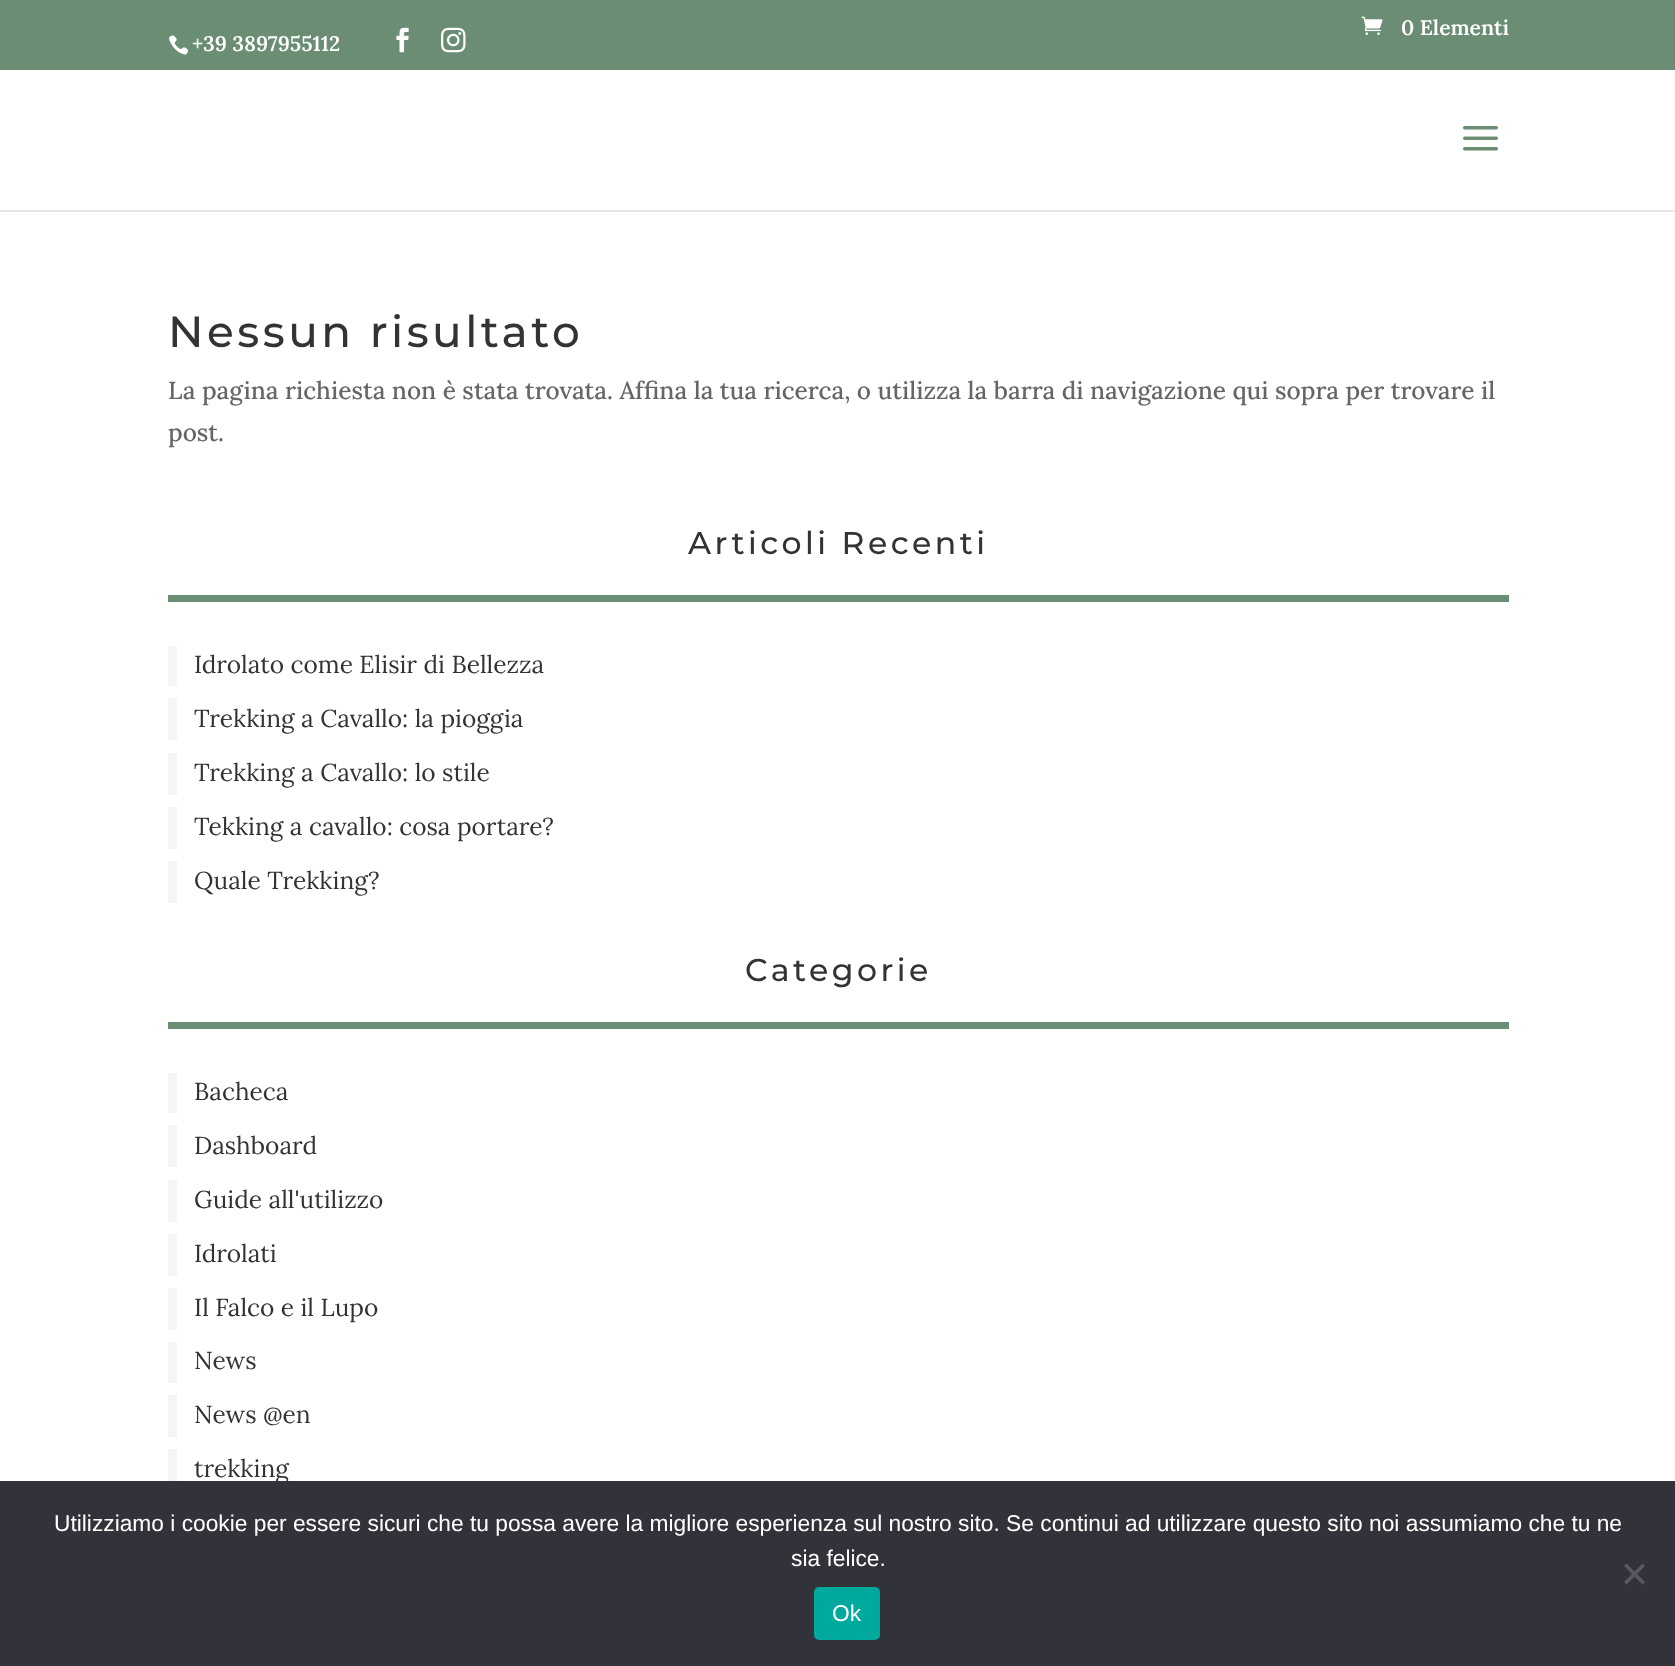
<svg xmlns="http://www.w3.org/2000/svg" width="1675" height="1666">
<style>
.a{font:600 21px Lora;fill:#fff}
.b{font:500 43.75px Montserrat;letter-spacing:3.5px;fill:#333}
.c{font:500 24.5px Lora;fill:#666}
.d{font:500 31.5px Montserrat;letter-spacing:3.5px;fill:#333}
.e{font:24.5px Lora;fill:#333}
.f{font:22.75px Liberation Sans;fill:#fff}
</style>
<rect width="100%" height="100%" fill="#fff"/>
<path fill="#6a8d73" d="M0 0h1675v70H0z"/>
<image href="1.png" x="1361" y="16" width="22" height="19"/>
<image href="2.png" x="168" y="35" width="21" height="20"/>
<image href="3.png" x="396" y="27" width="13" height="26"/>
<image href="4.png" x="441" y="27" width="25" height="26"/>
<path fill="#e6e6e6" d="M0 210v2h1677v-140h-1v138z"/>
<image href="5.png" x="1463" y="126" width="35" height="25"/>
<path fill="#6a8d73" d="M168 595h1341v7H168z"/>
<path fill="#f5f5f5" d="M168 646h9v40H168z"/>
<path fill="#f5f5f5" d="M168 698h9v42H168z"/>
<path fill="#f5f5f5" d="M168 753h9v42H168z"/>
<path fill="#f5f5f5" d="M168 807h9v42H168z"/>
<path fill="#f5f5f5" d="M168 861h9v42H168z"/>
<path fill="#6a8d73" d="M168 1022h1341v7H168z"/>
<path fill="#f5f5f5" d="M168 1073h9v40H168z"/>
<path fill="#f5f5f5" d="M168 1125h9v42H168z"/>
<path fill="#f5f5f5" d="M168 1180h9v42H168z"/>
<path fill="#f5f5f5" d="M168 1234h9v42H168z"/>
<path fill="#f5f5f5" d="M168 1288h9v42H168z"/>
<path fill="#f5f5f5" d="M168 1342h9v41H168z"/>
<path fill="#f5f5f5" d="M168 1395h9v42H168z"/>
<path fill="#f5f5f5" d="M168 1449h9v32H168z"/>
<text class="a" x="1401" y="35">0 Elementi</text>
<text class="a" x="192" y="51">+39 3897955112</text>
<text class="b" x="168" y="347">Nessun risultato</text>
<text class="c" x="168" y="399">La pagina richiesta non è stata trovata. Affina la tua ricerca, o utilizza la barra di navigazione qui sopra per trovare il</text>
<text class="c" x="168" y="441">post.</text>
<text class="d" x="688" y="554">Articoli Recenti</text>
<text class="e" x="194" y="673">Idrolato come Elisir di Bellezza</text>
<text class="e" x="194" y="727">Trekking a Cavallo: la pioggia</text>
<text class="e" x="194" y="781">Trekking a Cavallo: lo stile</text>
<text class="e" x="194" y="835">Tekking a cavallo: cosa portare?</text>
<text class="e" x="194" y="889">Quale Trekking?</text>
<text class="d" x="745" y="981">Categorie</text>
<text class="e" x="194" y="1100">Bacheca</text>
<text class="e" x="194" y="1154">Dashboard</text>
<text class="e" x="194" y="1208">Guide all'utilizzo</text>
<text class="e" x="194" y="1262">Idrolati</text>
<text class="e" x="194" y="1316">Il Falco e il Lupo</text>
<text class="e" x="194" y="1369">News</text>
<text class="e" x="194" y="1423">News @en</text>
<text class="e" x="194" y="1477">trekking</text>
<path fill="#32323a" d="M0 1481h1675v185H0z"/>
<text class="f" x="54" y="1531">Utilizziamo i cookie per essere sicuri che tu possa avere la migliore esperienza sul nostro sito. Se continui ad utilizzare questo sito noi assumiamo che tu ne</text>
<text class="f" x="791" y="1566">sia felice.</text>
<path fill="#59595d" d="M1642.5 1563.5l2.5 2.5l-18.5 18.5l-2.5-2.5z"/>
<path fill="#59595d" d="M1624 1566l2.5-2.5l18.5 18.5l-2.5 2.5z"/>
<rect fill="#00a99d" x="814" y="1587" width="66" height="53" rx="5"/>
<text class="f" x="832" y="1621">Ok</text>
</svg>
